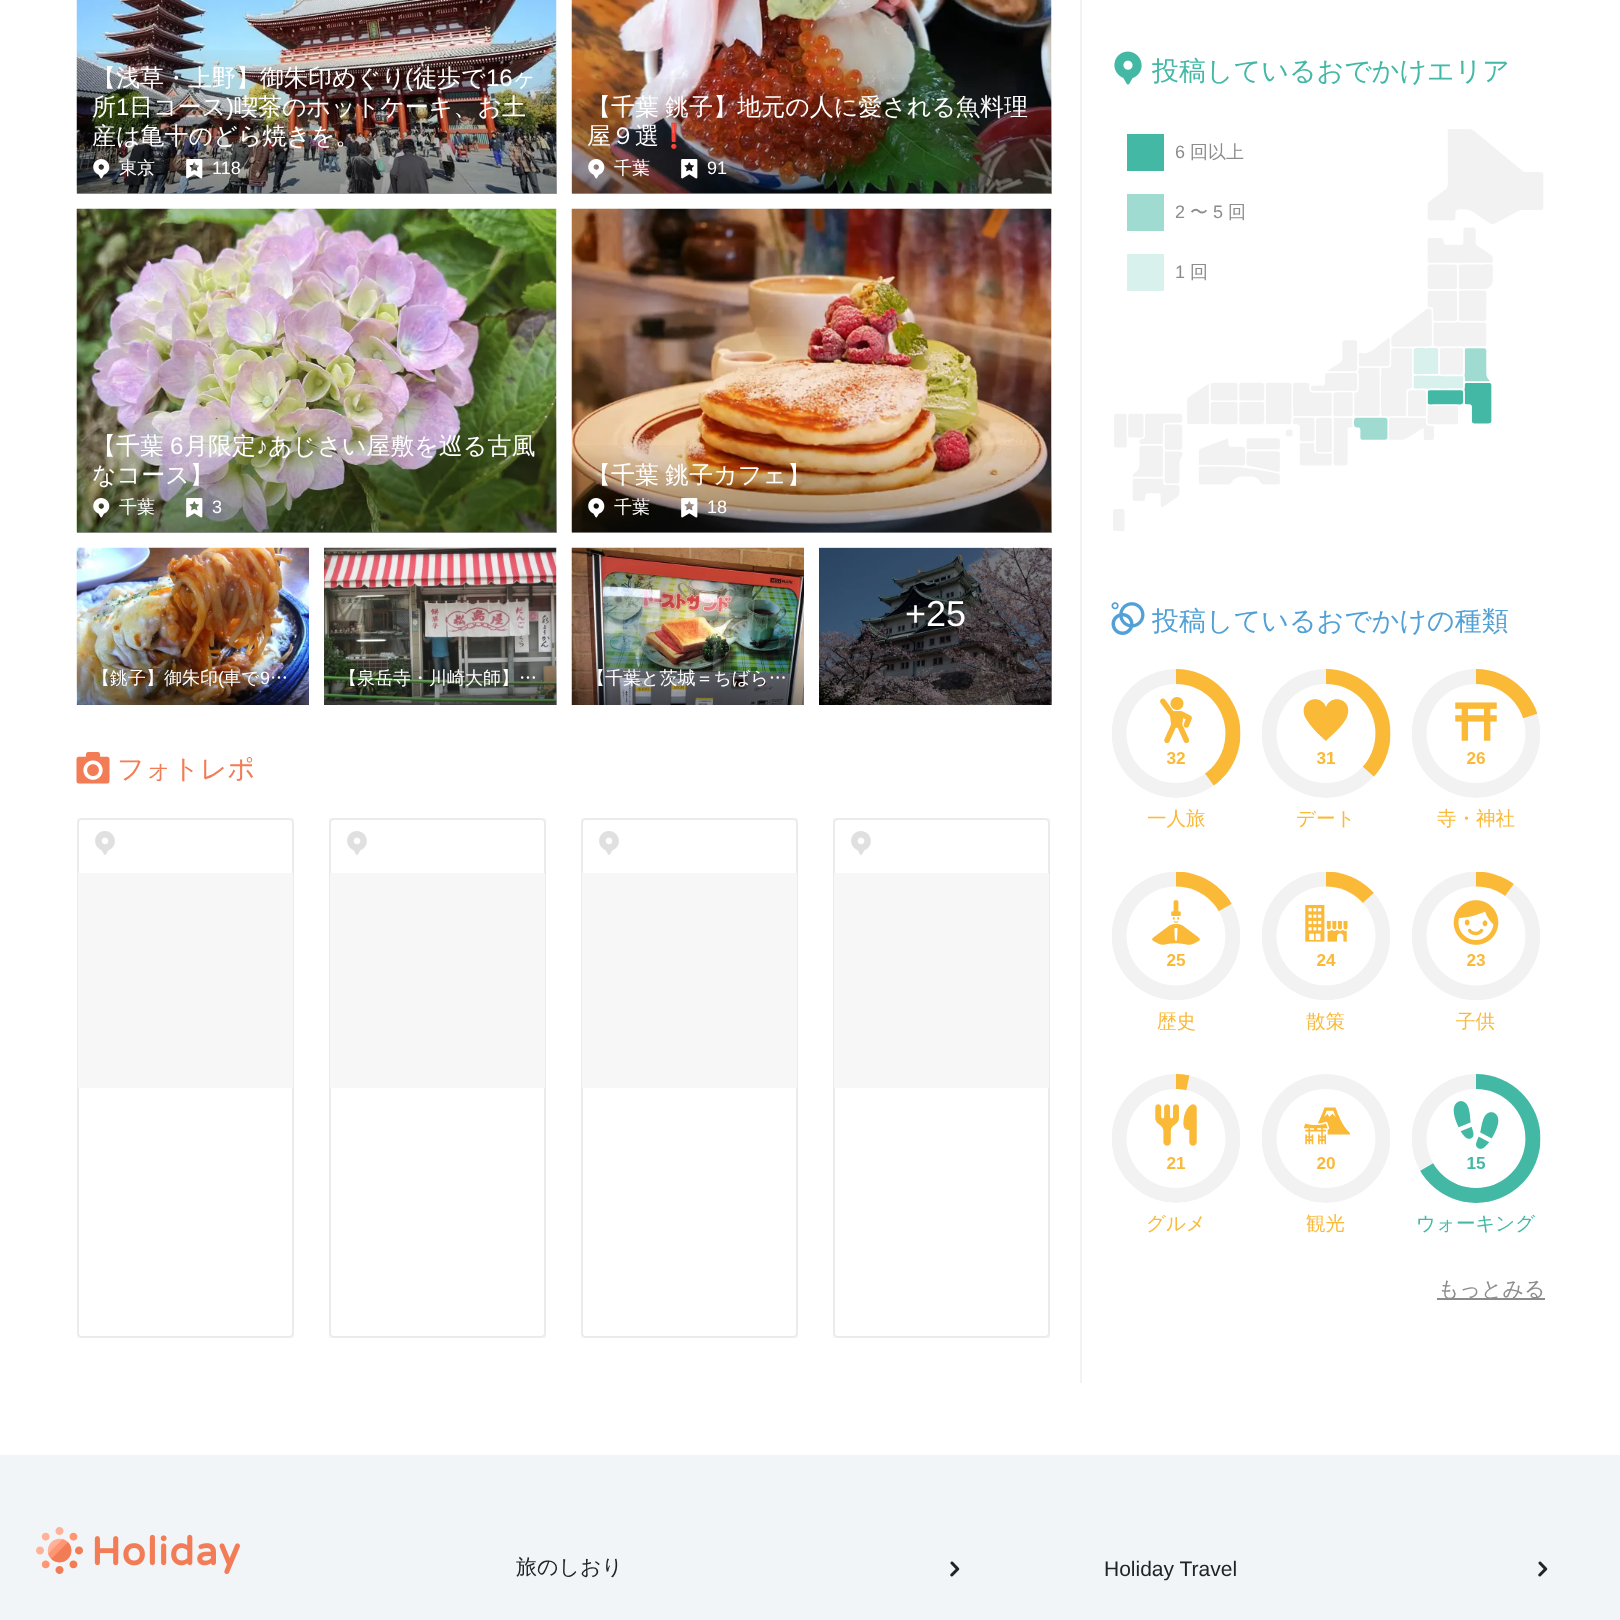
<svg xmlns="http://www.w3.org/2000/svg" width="1620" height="1620">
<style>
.a{font:500 24px WenQuanYi Zen Hei;fill:#fff}
.b{font:24px Liberation Sans;fill:#fff}
.c{font:500 18px WenQuanYi Zen Hei;fill:#fff}
.d{font:18px Liberation Sans;fill:#fff}
.e{font:24px Noto Color Emoji;fill:#fff}
.f{font:36px Liberation Sans;fill:#fff}
.g{font:500 27px WenQuanYi Zen Hei;fill:#f27c55}
.h{font:500 27px WenQuanYi Zen Hei;fill:#42b8a5}
.i{font:18px Liberation Sans;fill:#8c8c8c}
.j{font:500 18px WenQuanYi Zen Hei;fill:#8c8c8c}
.k{font:500 27px WenQuanYi Zen Hei;fill:#51a0d6}
.l{font:500 19.5px WenQuanYi Zen Hei;fill:#fab937}
.m{font:500 19.5px WenQuanYi Zen Hei;fill:#42b8a5}
.n{font:500 21px WenQuanYi Zen Hei;fill:#8c8c8c}
.o{font:500 21px WenQuanYi Zen Hei;fill:#212324}
.p{font:21px Liberation Sans;fill:#212324}
</style>
<defs>
<linearGradient id="g1" gradientUnits="userSpaceOnUse" x1="317" y1="42" x2="317" y2="194"><stop offset="0" stop-color="#000" stop-opacity="0"/><stop offset="1" stop-color="#000" stop-opacity="0.4"/></linearGradient>
<linearGradient id="g2" gradientUnits="userSpaceOnUse" x1="812" y1="72" x2="812" y2="194"><stop offset="0" stop-color="#000" stop-opacity="0"/><stop offset="1" stop-color="#000" stop-opacity="0.4"/></linearGradient>
<linearGradient id="g3" gradientUnits="userSpaceOnUse" x1="317" y1="411" x2="317" y2="533"><stop offset="0" stop-color="#000" stop-opacity="0"/><stop offset="1" stop-color="#000" stop-opacity="0.4"/></linearGradient>
<linearGradient id="g4" gradientUnits="userSpaceOnUse" x1="812" y1="440" x2="812" y2="533"><stop offset="0" stop-color="#000" stop-opacity="0"/><stop offset="1" stop-color="#000" stop-opacity="0.4"/></linearGradient>
<linearGradient id="g5" gradientUnits="userSpaceOnUse" x1="440" y1="647" x2="440" y2="705"><stop offset="0" stop-color="#000" stop-opacity="0"/><stop offset="1" stop-color="#000" stop-opacity="0.4"/></linearGradient>
</defs>
<rect width="100%" height="100%" fill="#fff"/>
<path fill="#808080" d="M1051 548h1v157H1051z"/>
<path fill="#f2f2f2" d="M1080 0h2v1383H1080z"/>
<image href="1.png" x="76" y="0" width="481" height="194"/>
<path fill="url(#g1)" d="M77 50h480v144H77z"/>
<image href="2.png" x="93" y="159" width="17" height="20"/>
<image href="3.png" x="186" y="159" width="17" height="20"/>
<image href="4.png" x="571" y="0" width="481" height="194"/>
<path fill="url(#g2)" d="M572 79h480v115H572z"/>
<image href="5.png" x="588" y="159" width="17" height="20"/>
<image href="6.png" x="681" y="159" width="17" height="20"/>
<image href="7.png" x="76" y="208" width="481" height="325"/>
<path fill="url(#g3)" d="M77 418h480v115H77z"/>
<image href="8.png" x="93" y="498" width="17" height="20"/>
<image href="9.png" x="186" y="498" width="17" height="20"/>
<image href="10.png" x="571" y="208" width="481" height="325"/>
<path fill="url(#g4)" d="M572 445h480v88H572z"/>
<image href="11.png" x="588" y="498" width="17" height="20"/>
<image href="12.png" x="681" y="498" width="17" height="20"/>
<image href="13.png" x="819" y="547" width="233" height="158"/>
<image href="14.png" x="76" y="547" width="233" height="158"/>
<image href="15.png" x="324" y="547" width="233" height="158"/>
<path fill="url(#g5)" d="M324 650h233v55H324z"/>
<image href="16.png" x="571" y="547" width="233" height="158"/>
<image href="17.png" x="76" y="752" width="34" height="32"/>
<path fill="#f7f7f7" d="M77 818h217v520H77z"/>
<rect fill="#fff" stroke="#ebebeb" stroke-width="2" x="78" y="819" width="215" height="518" rx="4"/>
<image href="18.png" x="95" y="831" width="20" height="24"/>
<path fill="#f7f7f7" d="M78 873h215v215H78z"/>
<path fill="#f7f7f7" d="M329 818h217v520H329z"/>
<rect fill="#fff" stroke="#ebebeb" stroke-width="2" x="330" y="819" width="215" height="518" rx="4"/>
<image href="18.png" x="347" y="831" width="20" height="24"/>
<path fill="#f7f7f7" d="M330 873h215v215H330z"/>
<path fill="#f7f7f7" d="M581 818h217v520H581z"/>
<rect fill="#fff" stroke="#ebebeb" stroke-width="2" x="582" y="819" width="215" height="518" rx="4"/>
<image href="18.png" x="599" y="831" width="20" height="24"/>
<path fill="#f7f7f7" d="M582 873h215v215H582z"/>
<path fill="#f7f7f7" d="M833 818h217v520H833z"/>
<rect fill="#fff" stroke="#ebebeb" stroke-width="2" x="834" y="819" width="215" height="518" rx="4"/>
<image href="18.png" x="851" y="831" width="20" height="24"/>
<path fill="#f7f7f7" d="M834 873h215v215H834z"/>
<image href="19.png" x="1114" y="51" width="28" height="34"/>
<image href="20.png" x="1113" y="129" width="431" height="402"/>
<path fill="#42b8a5" d="M1127 134h37v37H1127z"/>
<path fill="#9fdbd1" d="M1127 194h37v37H1127z"/>
<path fill="#d8f1ed" d="M1127 254h37v37H1127z"/>
<image href="21.png" x="1111" y="602" width="34" height="33"/>
<image href="22.png" x="1112" y="669" width="129" height="129"/>
<image href="23.png" x="1160" y="697" width="32" height="47"/>
<image href="24.png" x="1262" y="669" width="129" height="129"/>
<path fill="#fab937" d="M1326 707c5-14 28-8 21 10c-4 9-14 17-21 24c-7-6-17-16-21-24c-7-18 16-24 21-10z"/>
<image href="25.png" x="1412" y="669" width="128" height="129"/>
<image href="26.png" x="1455" y="702" width="42" height="39"/>
<image href="27.png" x="1112" y="872" width="128" height="128"/>
<image href="28.png" x="1152" y="900" width="48" height="45"/>
<image href="29.png" x="1262" y="872" width="128" height="128"/>
<image href="30.png" x="1305" y="904" width="43" height="38"/>
<image href="31.png" x="1412" y="872" width="128" height="128"/>
<image href="32.png" x="1453" y="900" width="46" height="45"/>
<image href="33.png" x="1112" y="1074" width="128" height="129"/>
<image href="34.png" x="1155" y="1104" width="42" height="42"/>
<image href="35.png" x="1262" y="1074" width="128" height="129"/>
<image href="36.png" x="1303" y="1107" width="47" height="38"/>
<image href="37.png" x="1412" y="1074" width="129" height="129"/>
<image href="38.png" x="1453" y="1101" width="46" height="48"/>
<path fill="#8c8c8c" d="M1437 1298h108v2H1437z"/>
<path fill="#f1f5f8" d="M0 1455h1620v165H0z"/>
<image href="39.png" x="36" y="1527" width="204" height="47"/>
<image href="40.png" x="950" y="1561" width="10" height="16"/>
<image href="40.png" x="1538" y="1561" width="10" height="16"/>
<text class="a" x="92" y="86">【浅草・上野】御朱印めぐり</text>
<text class="b" x="405" y="86">(</text>
<text class="a" x="413" y="86">徒歩で</text>
<text class="b" x="486" y="86">16</text>
<text class="a" x="512" y="86">ヶ</text>
<text class="a" x="92" y="115">所</text>
<text class="b" x="116" y="115">1</text>
<text class="a" x="129" y="115">日コース</text>
<text class="b" x="226" y="115">)</text>
<text class="a" x="234" y="115">喫茶のホットケーキ、お土</text>
<text class="a" x="92" y="144">産は亀十のどら焼きを。</text>
<text class="c" x="119" y="174">東京</text>
<text class="d" x="212" y="174">118</text>
<text class="a" x="587" y="115" word-spacing="-1">【千葉 銚子】地元の人に愛される魚料理</text>
<text class="a" x="587" y="144">屋９選</text>
<text class="e" x="659" y="144">❗️</text>
<text class="c" x="614" y="174">千葉</text>
<text class="d" x="707" y="174">91</text>
<text class="a" x="92" y="454">【千葉</text>
<text class="b" x="170" y="454">6</text>
<text class="a" x="184" y="454">月限定</text>
<text class="b" x="256" y="454">♪</text>
<text class="a" x="268" y="454">あじさい屋敷を巡る古風</text>
<text class="a" x="92" y="483">なコース】</text>
<text class="c" x="119" y="513">千葉</text>
<text class="d" x="212" y="513">3</text>
<text class="a" x="587" y="483" word-spacing="-1">【千葉 銚子カフェ】</text>
<text class="c" x="614" y="513">千葉</text>
<text class="d" x="707" y="513">18</text>
<text class="f" x="905" y="626">+25</text>
<text class="c" x="92" y="684">【銚子】御朱印</text>
<text class="d" x="218" y="684">(</text>
<text class="c" x="223" y="684">車で</text>
<text class="d" x="260" y="684">9</text>
<text class="c" x="270" y="684">…</text>
<text class="c" x="339" y="684">【泉岳寺・川崎大師】…</text>
<text class="c" x="587" y="684">【千葉と茨城＝ちばら…</text>
<text class="g" x="117" y="778">フォトレポ</text>
<text class="h" x="1152" y="80">投稿しているおでかけエリア</text>
<text class="i" x="1175" y="158">6</text>
<text class="j" x="1190" y="158">回以上</text>
<text class="i" x="1175" y="218">2</text>
<text class="j" x="1190" y="218">〜</text>
<text class="i" x="1213" y="218">5</text>
<text class="j" x="1228" y="218">回</text>
<text class="i" x="1175" y="278">1</text>
<text class="j" x="1190" y="278">回</text>
<text class="k" x="1152" y="630">投稿しているおでかけの種類</text>
<text class="l" x="1147" y="825">一人旅</text>
<text class="l" x="1296" y="825">デート</text>
<text class="l" x="1437" y="825">寺・神社</text>
<text class="l" x="1157" y="1028">歴史</text>
<text class="l" x="1306" y="1028">散策</text>
<text class="l" x="1456" y="1028">子供</text>
<text class="l" x="1146" y="1230">グルメ</text>
<text class="l" x="1306" y="1230">観光</text>
<text class="m" x="1416" y="1230">ウォーキング</text>
<text class="n" x="1438" y="1296">もっとみる</text>
<text class="o" x="516" y="1574">旅のしおり</text>
<text class="p" x="1104" y="1576">Holiday Travel</text>
</svg>
